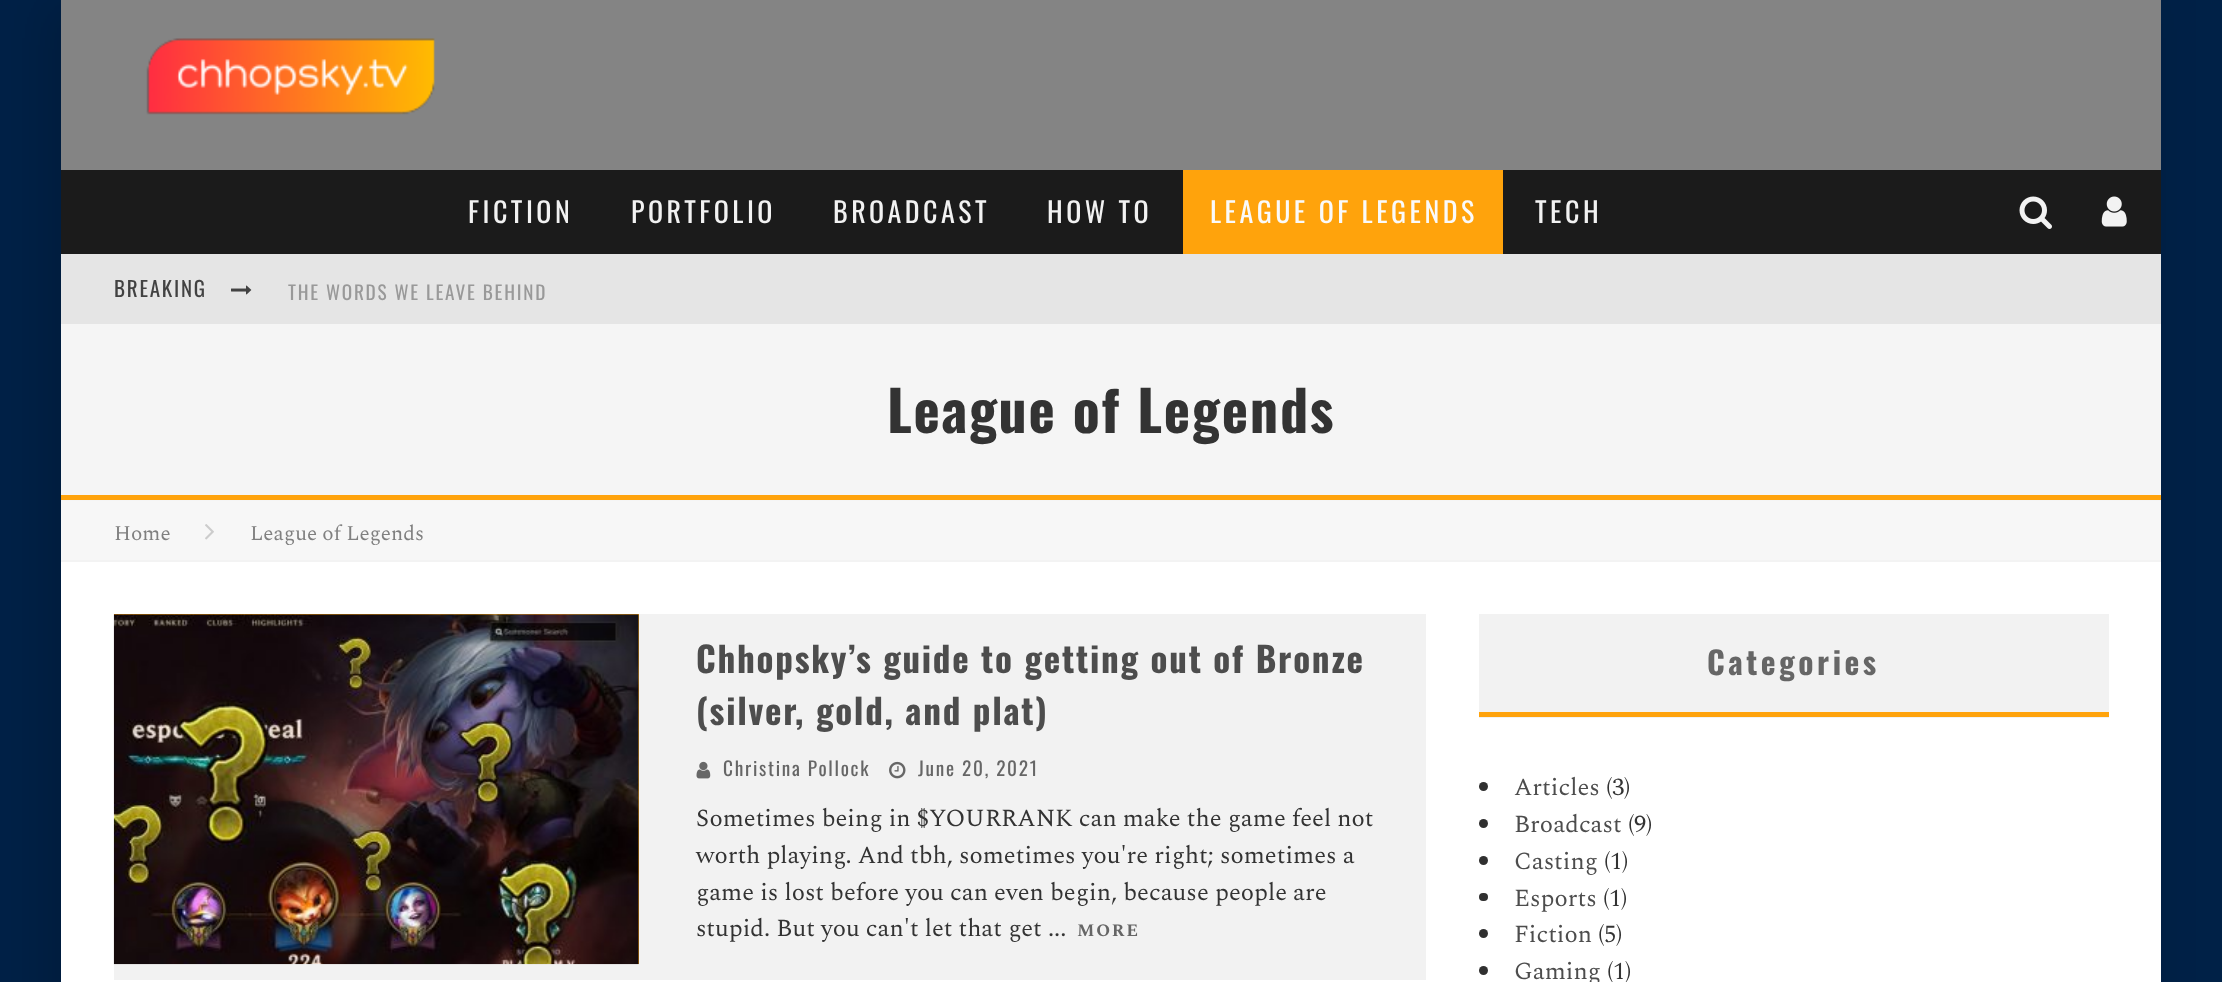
<svg xmlns="http://www.w3.org/2000/svg" width="2222" height="982">
<style>
.a{font:28px Oswald;letter-spacing:3.5px;fill:#f2f2f2}
.b{font:28px Oswald;letter-spacing:3.5px;fill:#fafafa}
.c{font:21px Oswald;letter-spacing:1.75px;fill:#424242}
.d{font:19.25px Oswald;letter-spacing:1.75px;fill:#999}
.e{font:bold 56px Oswald;letter-spacing:1.75px;fill:#333}
.f{font:21px Spectral;fill:#808080}
.g{font:bold 35px Oswald;letter-spacing:1.75px;fill:#4d4d4d}
.h{font:19.25px Oswald;letter-spacing:1.75px;fill:#666}
.i{font:24.5px Spectral;fill:#333}
.j{font:bold 17.5px Spectral;letter-spacing:1.75px;fill:#666}
.k{font:bold 31.5px Oswald;letter-spacing:3.5px;fill:#666}
.l{font:24.5px Spectral;fill:#4d4d4d}
</style>
<rect width="100%" height="100%" fill="#002147"/>
<path fill="#00000026" filter="blur(26px)" d="M44 0h2100v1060H44z"/>
<path fill="#848484" d="M61 0h2100v170H61z"/>
<image href="1.png" x="146" y="38" width="289" height="77"/>
<path fill="#1b1b1b" d="M61 170h2100v84H61z"/>
<path fill="#ffa30c" d="M1183 170h320v84H1183z"/>
<image href="2.png" x="2019" y="196" width="33" height="33"/>
<image href="3.png" x="2101" y="196" width="26" height="31"/>
<path fill="#e5e5e5" d="M61 254h2100v70H61z"/>
<image href="4.png" x="231" y="285" width="21" height="10"/>
<path fill="#fff" d="M61 562h2100v420H61z"/>
<path fill="#f5f5f5" d="M61 324h2100v177H61z"/>
<path fill="#ffa30c" d="M61 495h2100v5H61z"/>
<path fill="#f7f7f7" d="M61 501h2100v59H61z"/>
<path fill="#f3f3f3" d="M61 560h2100v2H61z"/>
<image href="5.png" x="205" y="524" width="9" height="16"/>
<path fill="#f2f2f2" d="M114 614h1312v366H114z"/>
<path fill="#ffa30c" d="M114 614h525v350H114z"/>
<image href="6.png" x="113" y="614" width="526" height="351"/>
<image href="7.png" x="696" y="761" width="15" height="18"/>
<image href="8.png" x="889" y="761" width="17" height="18"/>
<path fill="#f2f2f2" d="M1479 614h630v104H1479z"/>
<path fill="#ffa30c" d="M1479 712h630v5H1479z"/>
<circle fill="#303030" cx="1483.5" cy="786.5" r="4.5"/>
<circle fill="#303030" cx="1483.5" cy="823.5" r="4.5"/>
<circle fill="#303030" cx="1483.5" cy="860.5" r="4.5"/>
<rect fill="#303030" x="1479" y="893" width="9" height="8" rx="4"/>
<circle fill="#303030" cx="1483.5" cy="933.5" r="4.5"/>
<circle fill="#303030" cx="1483.5" cy="970.5" r="4.5"/>
<text class="a" x="468" y="223">FICTION</text>
<text class="a" x="631" y="223">PORTFOLIO</text>
<text class="a" x="833" y="223">BROADCAST</text>
<text class="a" x="1047" y="223">HOW TO</text>
<text class="b" x="1210" y="223">LEAGUE OF LEGENDS</text>
<text class="a" x="1535" y="223">TECH</text>
<text class="c" x="114" y="297">BREAKING</text>
<text class="d" x="288" y="300">THE WORDS WE LEAVE BEHIND</text>
<text class="e" x="887" y="433">League of Legends</text>
<text class="f" x="114" y="540">Home</text>
<text class="f" x="250" y="540">League of Legends</text>
<text class="g" x="696" y="673">Chhopsky’s guide to getting out of Bronze</text>
<text class="g" x="696" y="725">(silver, gold, and plat)</text>
<text class="h" x="723" y="776">Christina Pollock</text>
<text class="h" x="918" y="776">June 20, 2021</text>
<text class="i" x="696" y="826">Sometimes being in $YOURRANK can make the game feel not</text>
<text class="i" x="696" y="863">worth playing. And tbh, sometimes you're right; sometimes a</text>
<text class="i" x="696" y="900">game is lost before you can even begin, because people are</text>
<text class="i" x="696" y="936">stupid. But you can't let that get ...</text>
<text class="j" x="1077" y="936">MORE</text>
<text class="k" x="1707" y="675">Categories</text>
<text class="l" x="1514" y="795">Articles</text>
<text class="i" x="1606" y="795">(3)</text>
<text class="l" x="1514" y="832">Broadcast</text>
<text class="i" x="1628" y="832">(9)</text>
<text class="l" x="1514" y="869">Casting</text>
<text class="i" x="1604" y="869">(1)</text>
<text class="l" x="1514" y="906">Esports</text>
<text class="i" x="1603" y="906">(1)</text>
<text class="l" x="1514" y="942">Fiction</text>
<text class="i" x="1598" y="942">(5)</text>
<text class="l" x="1514" y="979">Gaming</text>
<text class="i" x="1607" y="979">(1)</text>
</svg>
